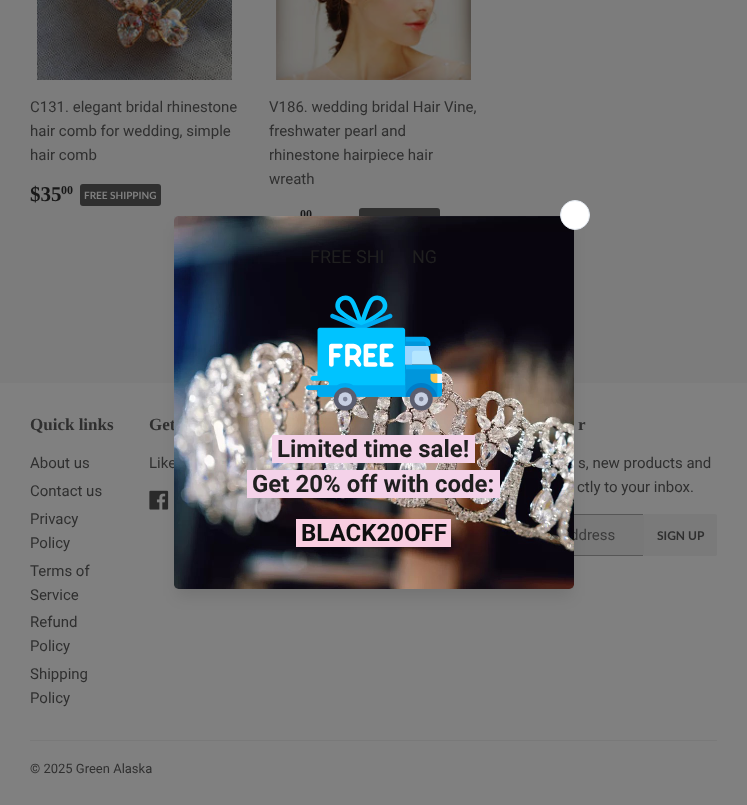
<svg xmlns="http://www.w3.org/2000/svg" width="747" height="805">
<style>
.a{font:15px Roboto;fill:#2f2f2f}
.b{font:bold 21px Liberation Serif;fill:#181818}
.c{font:bold 12px Liberation Serif;fill:#181818}
.d{font:bold 10px Lato;fill:#808080}
.e{font:bold 17px Liberation Serif;fill:#2f2f2f}
.f{font:15px Roboto;fill:#3b3b3b}
.g{font:bold 24px Roboto;fill:#0f0f0f}
.h{font:bold 24px Roboto;fill:#1f1f1f}
.i{font:18px Roboto;fill:#1f1f1f}
.j{font:bold 12px Lato;fill:#2f2f2f}
.k{font:13px Roboto;fill:#2f2f2f}
</style>
<defs>
<clipPath id="clip1"><path d="M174 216h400v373H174z"/></clipPath>
</defs>
<rect width="100%" height="100%" fill="#7c7c7c"/>
<image href="1.png" x="37" y="0" width="195" height="80"/>
<rect fill="#2f2f2f" x="80" y="184" width="81" height="22" rx="3"/>
<image href="2.png" x="276" y="0" width="195" height="80"/>
<rect fill="#2f2f2f" x="359" y="208" width="81" height="22" rx="3"/>
<path fill="#808080" d="M0 383h747v422H0z"/>
<image href="5.png" x="149" y="490" width="20" height="20"/>
<rect fill="#787878" x="508" y="514" width="136" height="42" rx="2"/>
<path fill="#565656" d="M574 514h69v1H574z"/>
<path fill="#565656" d="M574 555h69v1H574z"/>
<rect fill="#0000001a" filter="blur(7.5px)" x="177" y="229" width="394" height="367" rx="2"/>
<g clip-path="url(#clip1)">
<rect fill="#0000001f" filter="blur(10px)" x="177" y="219" width="394" height="367" rx="2"/>
</g>
<path fill="#7a7a7a" d="M644 514h71c1 0 2 1 2 2v38c0 1-1 2-2 2h-71z"/>
<path fill="#797979" d="M30 740h687v1H30z"/>
<text class="a" x="30" y="112">C131. elegant bridal rhinestone</text>
<text class="a" x="30" y="136">hair comb for wedding, simple</text>
<text class="a" x="30" y="160">hair comb</text>
<text class="b" x="30" y="201">$35</text>
<text class="c" x="61" y="194">00</text>
<text class="d" x="84" y="199">FREE SHIPPING</text>
<text class="a" x="269" y="112">V186. wedding bridal Hair Vine,</text>
<text class="a" x="269" y="136">freshwater pearl and</text>
<text class="a" x="269" y="160">rhinestone hairpiece hair</text>
<text class="a" x="269" y="184">wreath</text>
<text class="c" x="300" y="218">00</text>
<text class="e" x="30" y="430">Quick links</text>
<text class="a" x="30" y="468">About us</text>
<text class="a" x="30" y="496">Contact us</text>
<text class="a" x="30" y="524">Privacy</text>
<text class="a" x="30" y="548">Policy</text>
<text class="a" x="30" y="576">Terms of</text>
<text class="a" x="30" y="600">Service</text>
<text class="a" x="30" y="627">Refund</text>
<text class="a" x="30" y="651">Policy</text>
<text class="a" x="30" y="679">Shipping</text>
<text class="a" x="30" y="703">Policy</text>
<text class="e" x="149" y="430">Get</text>
<text class="a" x="149" y="468">Like</text>
<text class="e" x="578" y="430">r</text>
<text class="a" x="578" y="468">s, new products and</text>
<text class="a" x="577" y="492">ctly to your inbox.</text>
<text class="f" x="570" y="540">ddress</text>
<image href="3.png" x="174" y="216" width="400" height="373"/>
<circle fill="#fff" stroke="#e2e8f0" cx="575" cy="215" r="14.5"/>
<path fill="#f9cde0" d="M296 519h155v28H296z"/>
<text class="g" x="301" y="541">BLACK20OFF</text>
<path fill="#f4d2e9" d="M247 470h253v28H247z"/>
<text class="h" x="252" y="492">Get 20% off with code:</text>
<path fill="#f4d2e9" d="M272 435h203v28H272z"/>
<text class="h" x="277" y="457">Limited time sale!</text>
<image href="4.png" x="306" y="295" width="136" height="116"/>
<text class="i" x="412" y="263">NG</text>
<text class="i" x="310" y="263">FREE SHI</text>
<text class="j" x="657" y="540">SIGN UP</text>
<text class="k" x="30" y="773">© 2025 Green Alaska</text>
</svg>
